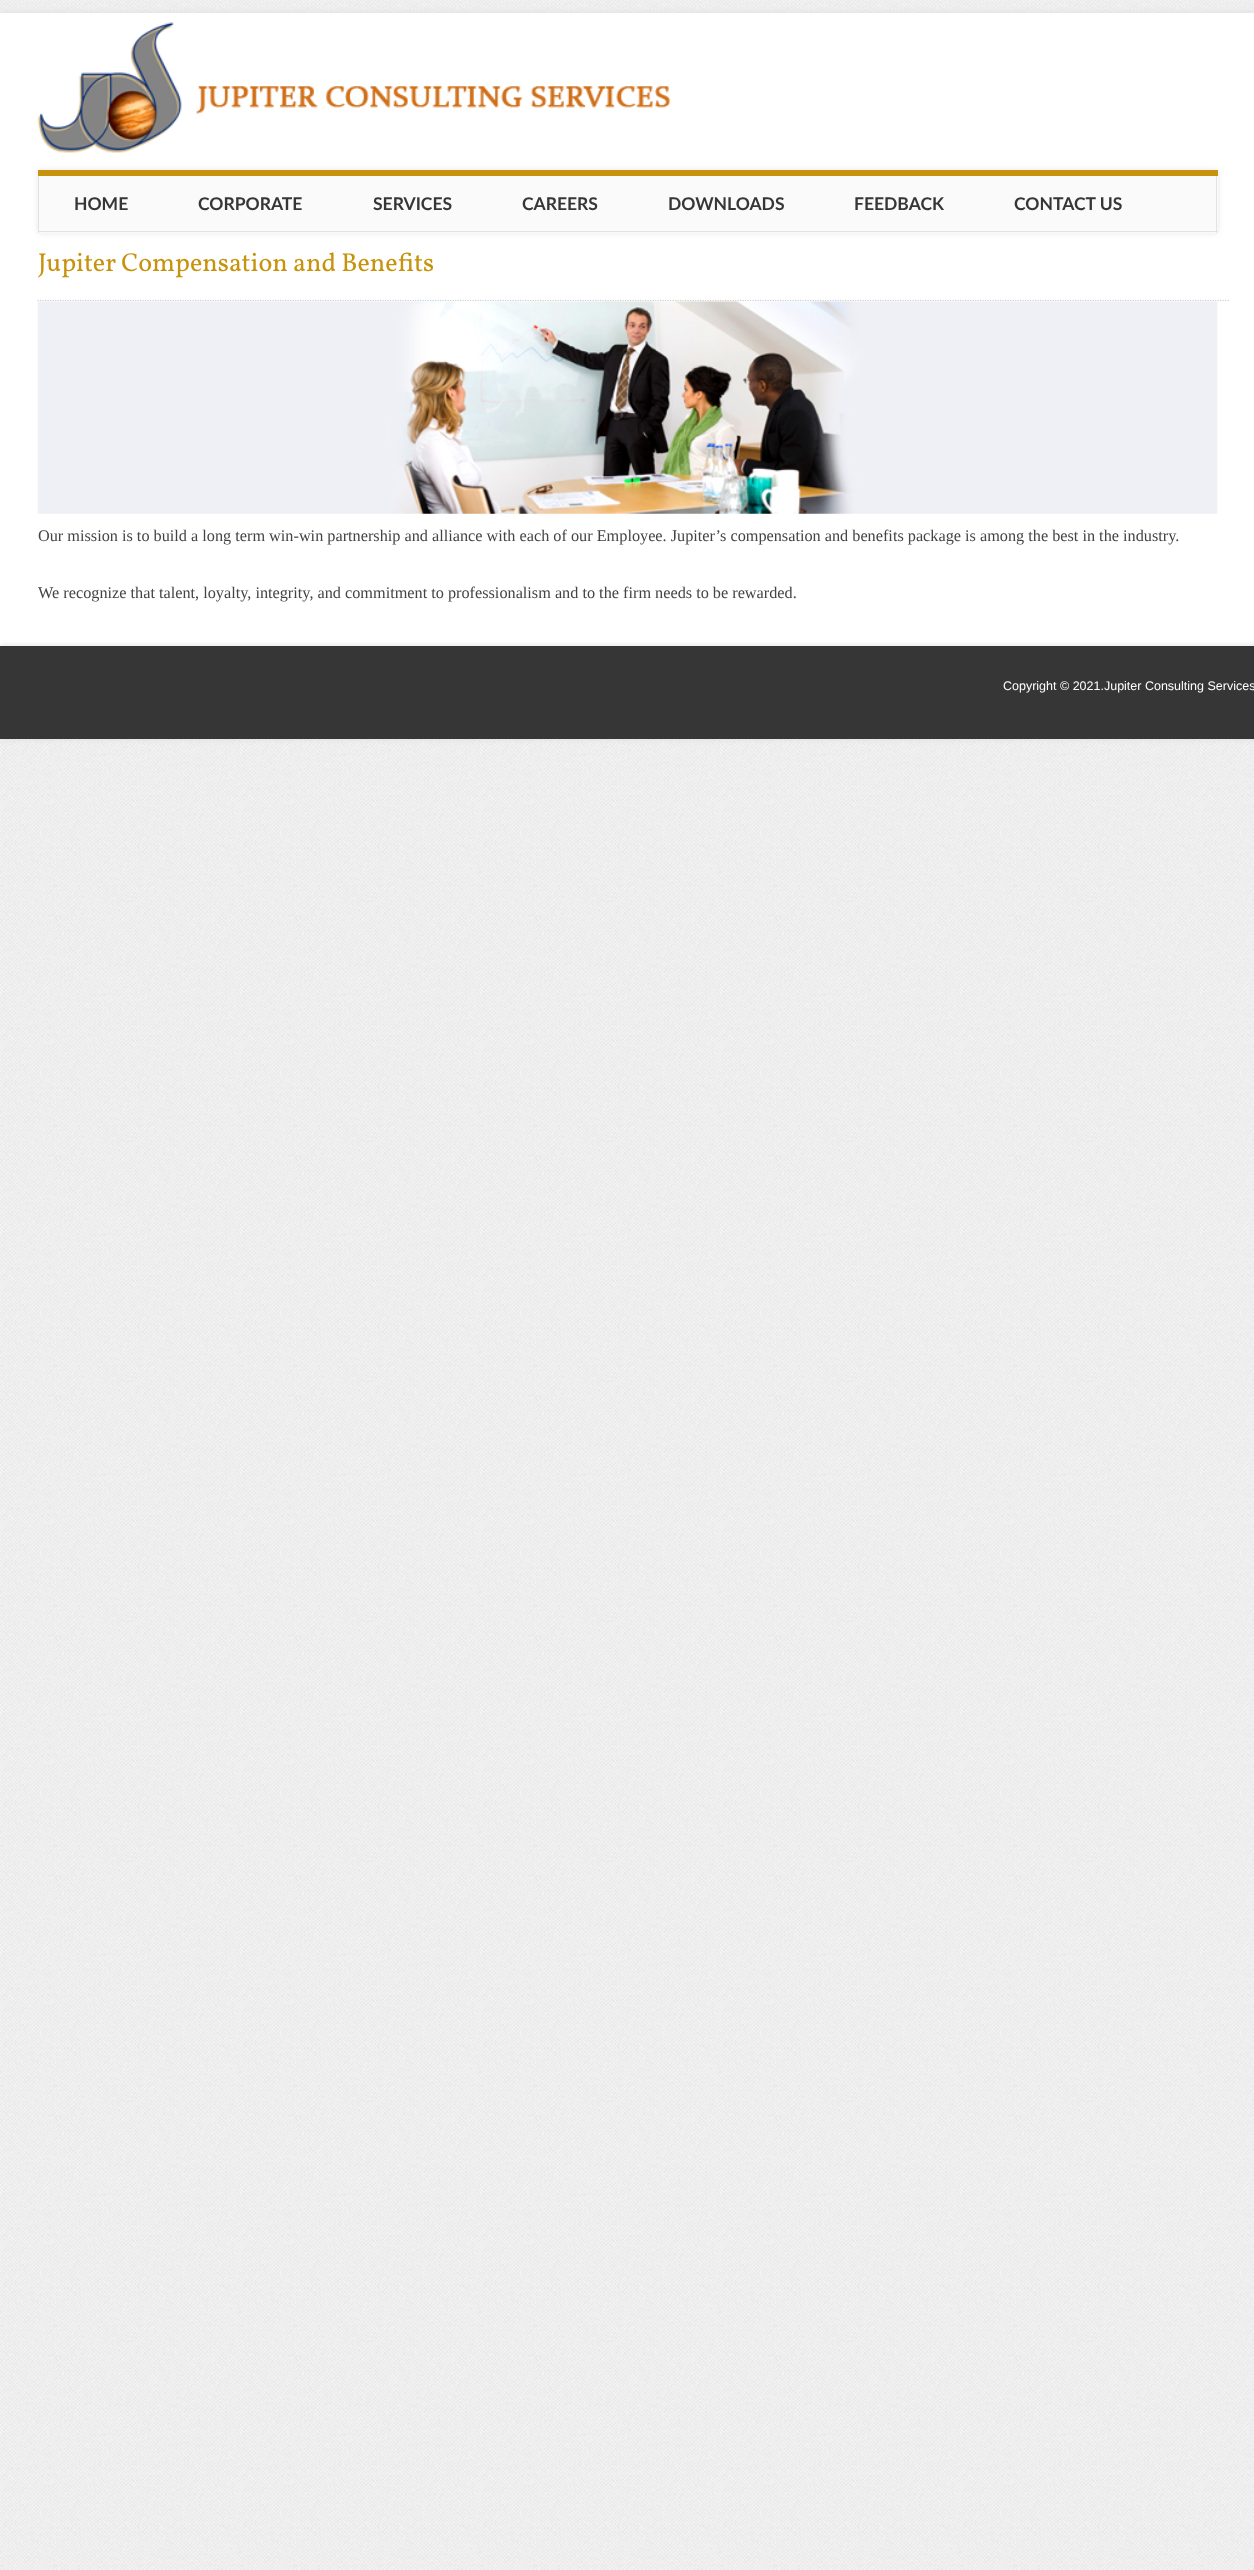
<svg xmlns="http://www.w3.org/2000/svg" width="1254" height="2570">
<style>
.a{font:bold 17.5px Lato;fill:#363636}
.b{font:26px Vollkorn;fill:#c7930d}
.c{font:16.25px Liberation Serif;fill:#444}
.d{font:12.5px Liberation Sans;fill:#fff}
</style>
<defs>
<clipPath id="clip1"><path d="M25 233h1205v375H25z"/></clipPath>
</defs>
<rect width="100%" height="100%" fill="#fff"/>
<image href="1.png" x="0" y="0" width="1254" height="2570"/>
<path fill="#dedede" filter="blur(3px)" d="M0 13h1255v633H0z"/>
<path fill="#fff" d="M0 13h1254v633H0z"/>
<image href="2.png" x="37" y="22" width="145" height="131"/>
<image href="3.png" x="196" y="86" width="475" height="28"/>
<path fill="#e7e7e7" filter="blur(3px)" d="M38 170h1180v63H38z"/>
<path fill="#c7930d" d="M38 170h1180v6H38z"/>
<path fill="#fafafa" d="M39 176h1179v57H39z"/>
<path fill="#e2e2e2" d="M1216 176h1v57H1216z"/>
<path fill="#e2e2e2" d="M38 231h1180v1H38z"/>
<path fill="#e2e2e2" d="M38 176h1v57H38z"/>
<g clip-path="url(#clip1)">
<path fill="none" stroke="#ccc" stroke-width="1.2" stroke-dasharray="1.25 1.25" d="M37.5 300.5h1216.5"/>
</g>
<image href="4.png" x="37" y="301" width="1181" height="213"/>
<path fill="#dedede" filter="blur(3px)" d="M0 646h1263v93H0z"/>
<path fill="#363636" d="M0 646h1254v93H0z"/>
<text class="a" x="74" y="210">HOME</text>
<text class="a" x="198" y="210">CORPORATE</text>
<text class="a" x="373" y="210">SERVICES</text>
<text class="a" x="522" y="210">CAREERS</text>
<text class="a" x="668" y="210">DOWNLOADS</text>
<text class="a" x="854" y="210">FEEDBACK</text>
<text class="a" x="1014" y="210">CONTACT US</text>
<text class="b" x="38" y="271">Jupiter Compensation and Benefits</text>
<text class="c" x="38" y="541">Our mission is to build a long term win-win partnership and alliance with each of our Employee. Jupiter’s compensation and benefits package is among the best in the industry.</text>
<text class="c" x="38" y="598">We recognize that talent, loyalty, integrity, and commitment to professionalism and to the firm needs to be rewarded.</text>
<text class="d" x="1003" y="690">Copyright © 2021.Jupiter Consulting Services</text>
</svg>
